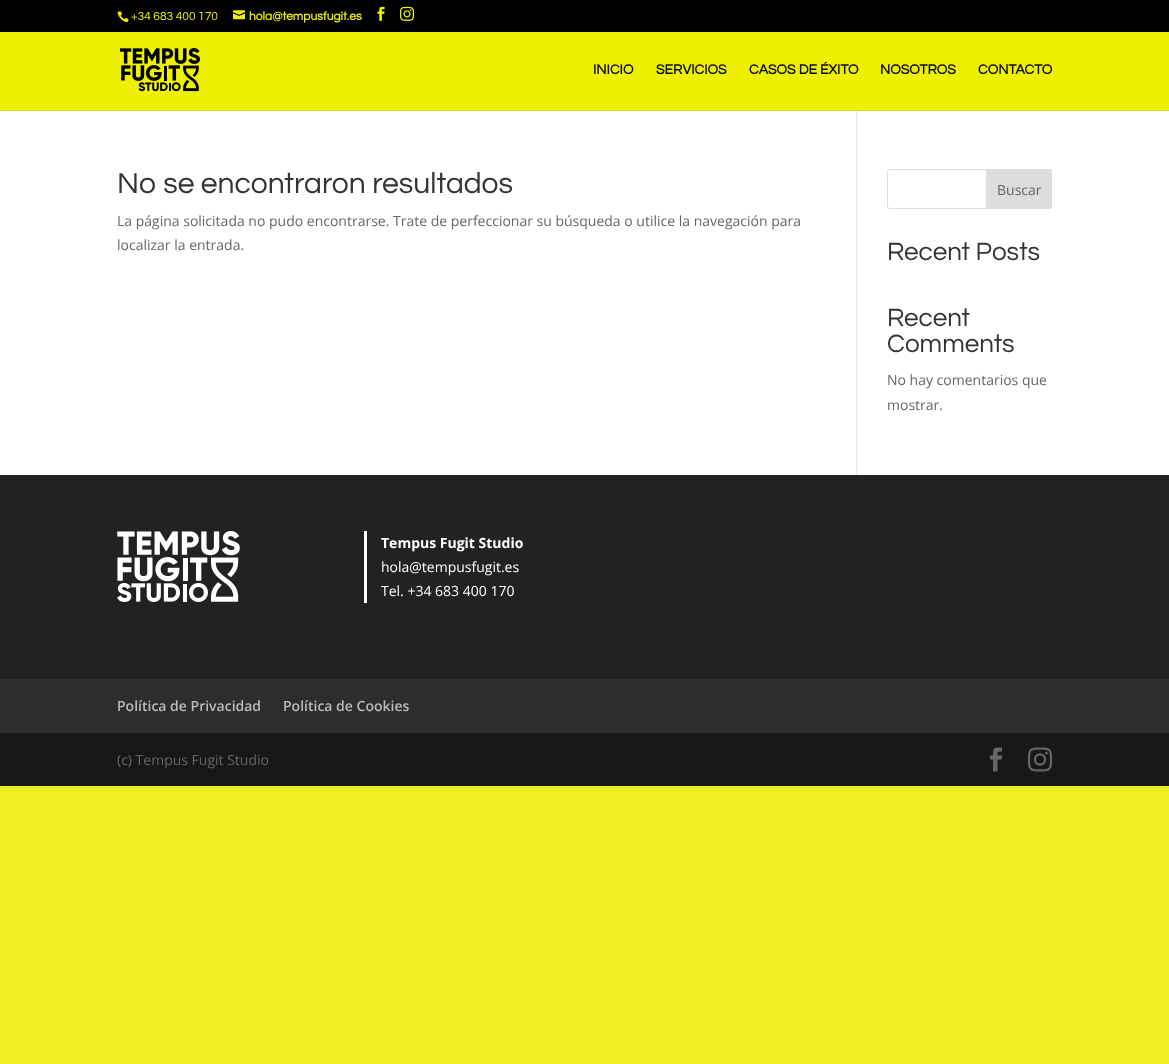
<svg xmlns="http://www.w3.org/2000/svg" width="1169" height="1064">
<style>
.a{font:12px Questrial;fill:#edf000}
.b{font:bold 12px Questrial;fill:#edf000}
.c{font:bold 14px Questrial;fill:#0a0a0a}
.d{font:30px Questrial;fill:#333}
.e{font:14px Open Sans;fill:#666}
.f{font:26px Questrial;fill:#333}
.g{font:bold 14px Open Sans;fill:#fff}
.h{font:14px Open Sans;fill:#fff}
.i{font:600 14px Open Sans;fill:#bbb}
</style>
<rect width="100%" height="100%" fill="#ee2"/>
<path fill="#000" d="M0 0h1169v32H0z"/>
<image href="1.png" x="117" y="11" width="12" height="12"/>
<image href="2.png" x="233" y="10" width="12" height="10"/>
<image href="3.png" x="377" y="6" width="8" height="15"/>
<image href="4.png" x="400" y="6" width="14" height="15"/>
<path fill="#d6d61f" d="M0 110h1169v1H0z"/>
<path fill="#edf000" d="M0 32h1169v78H0z"/>
<image href="5.png" x="120" y="48" width="80" height="44"/>
<path fill="#fff" d="M0 111h1169v364H0z"/>
<path fill="#e2e2e2" d="M856 111h1v364H856z"/>
<rect fill="none" stroke="#ddd" x="887.5" y="169.5" width="164" height="39" rx="2.5"/>
<path fill="#ddd" stroke="#ddd" d="M986.5 169.5h62.5c1.5 0 2.5 1 2.5 2.5v34c0 1.5-1 2.5-2.5 2.5h-62.5z"/>
<path fill="#222" d="M0 475h1169v204H0z"/>
<image href="6.png" x="117" y="531" width="123" height="71"/>
<path fill="#fff" d="M364 531h3v72H364z"/>
<path fill="#2d2d2d" d="M0 679h1169v54H0z"/>
<path fill="#171717" d="M0 733h1169v53H0z"/>
<image href="7.png" x="990" y="747" width="12" height="25"/>
<image href="8.png" x="1028" y="747" width="24" height="25"/>
<text class="a" x="131" y="20">+34 683 400 170</text>
<text class="b" x="249" y="20">hola@tempusfugit.es</text>
<text class="c" x="593" y="74">INICIO</text>
<text class="c" x="656" y="74">SERVICIOS</text>
<text class="c" x="749" y="74">CASOS DE ÉXITO</text>
<text class="c" x="880" y="74">NOSOTROS</text>
<text class="c" x="978" y="74">CONTACTO</text>
<text class="d" x="117" y="193">No se encontraron resultados</text>
<text class="e" x="117" y="226">La página solicitada no pudo encontrarse. Trate de perfeccionar su búsqueda o utilice la navegación para</text>
<text class="e" x="117" y="250">localizar la entrada.</text>
<text class="e" x="997" y="195">Buscar</text>
<text class="f" x="887" y="260">Recent Posts</text>
<text class="f" x="887" y="326">Recent</text>
<text class="f" x="887" y="352">Comments</text>
<text class="e" x="887" y="385">No hay comentarios que</text>
<text class="e" x="887" y="410">mostrar.</text>
<text class="g" x="381" y="548">Tempus Fugit Studio</text>
<text class="h" x="381" y="572">hola@tempusfugit.es</text>
<text class="h" x="381" y="596">Tel. +34 683 400 170</text>
<text class="i" x="117" y="711">Política de Privacidad</text>
<text class="i" x="283" y="711">Política de Cookies</text>
<text class="e" x="117" y="765">(c) Tempus Fugit Studio</text>
</svg>
